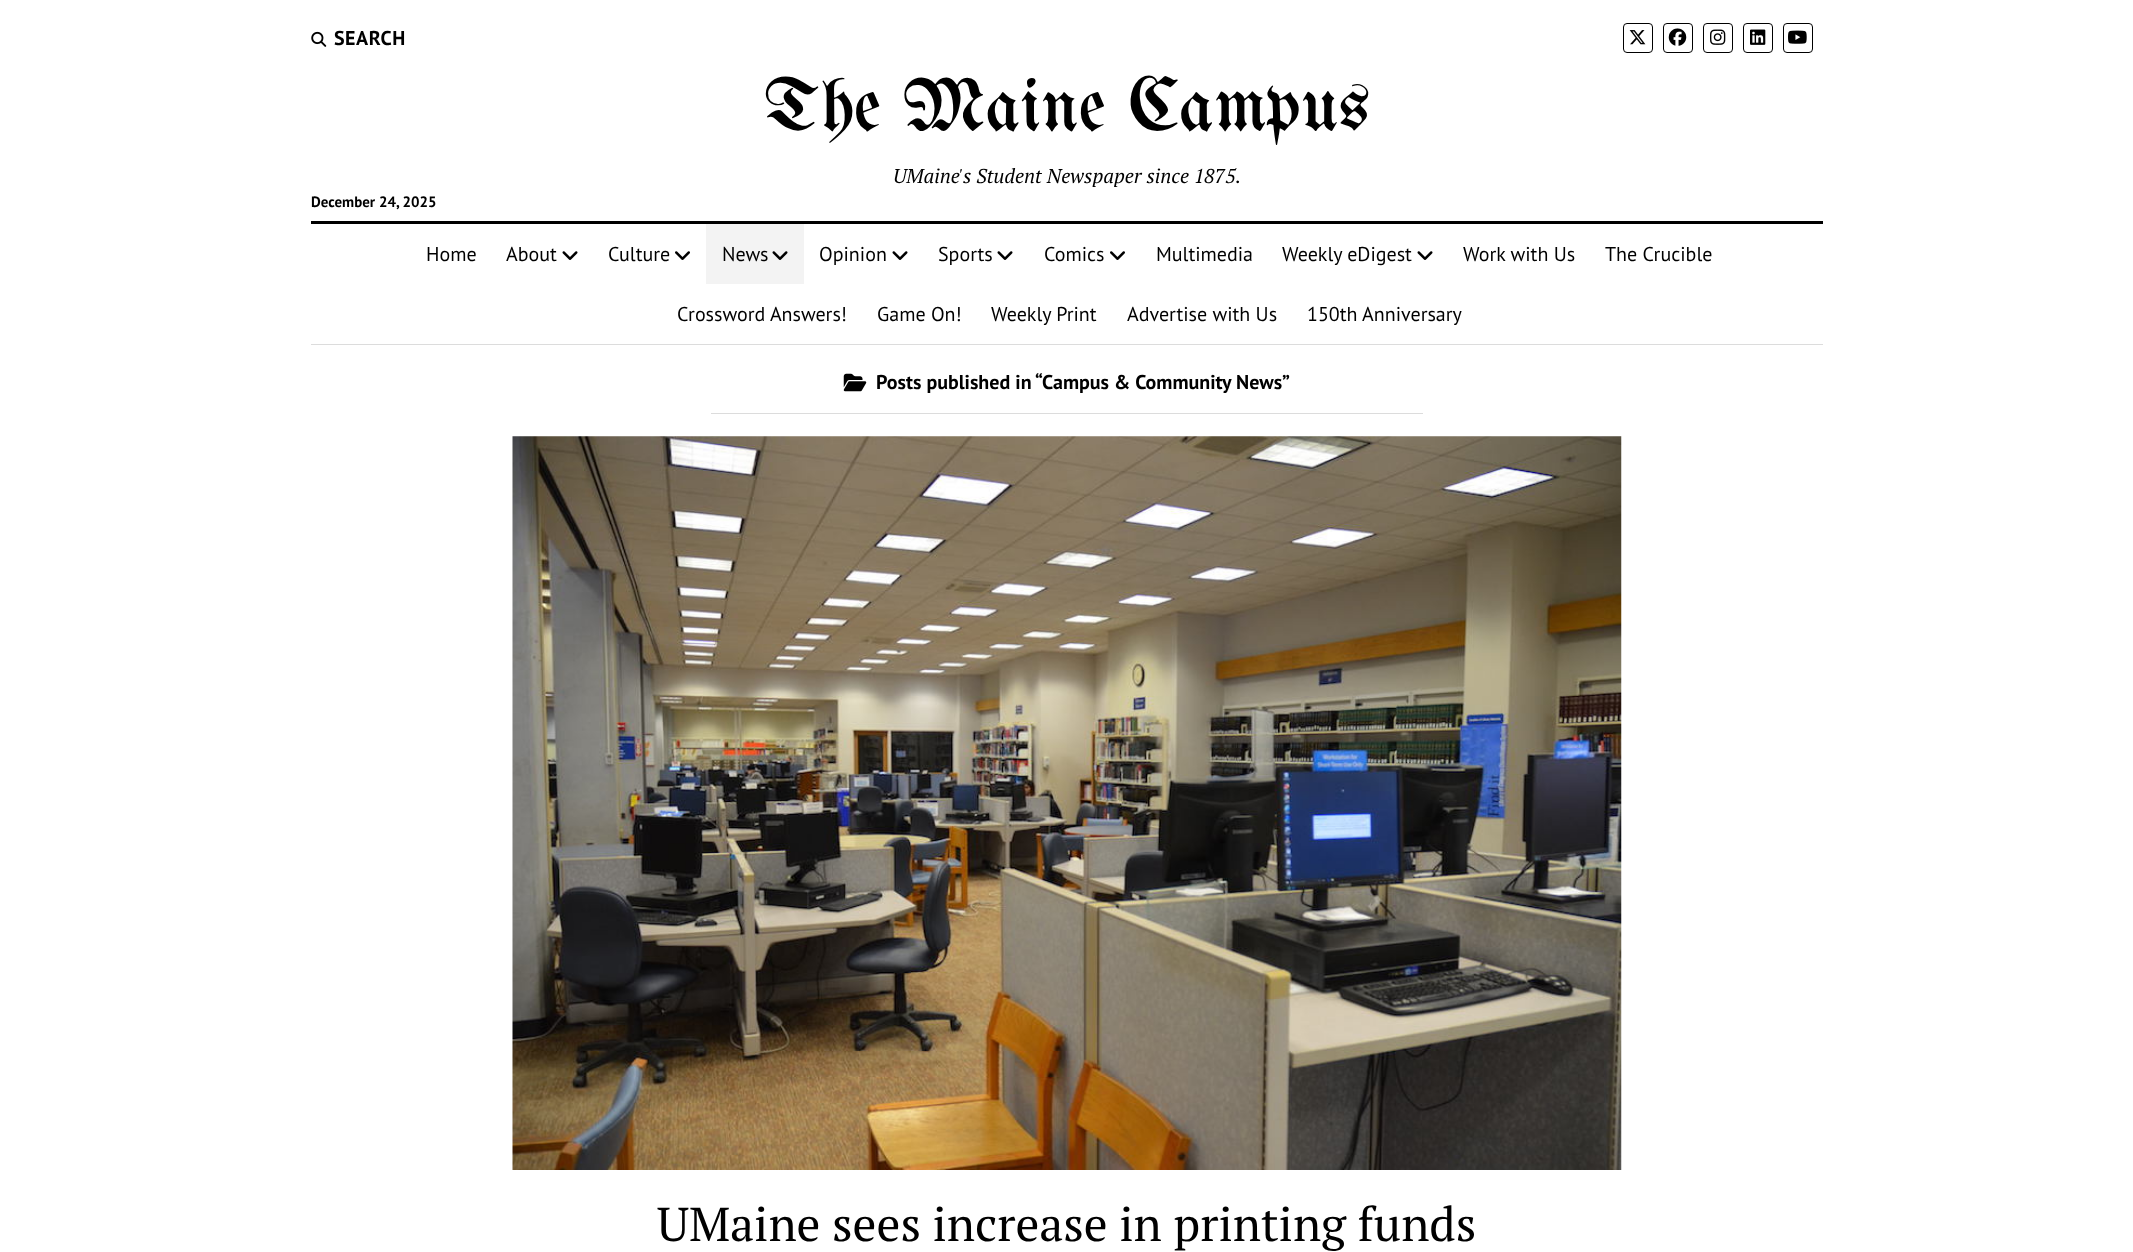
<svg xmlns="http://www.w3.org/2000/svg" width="2133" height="1252">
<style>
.a{font:bold 20px PT Sans;letter-spacing:0.5px;fill:#000}
.b{font:75px UnifrakturMaguntia;fill:#000}
.c{font:italic 20px PT Serif;fill:#000}
.d{font:bold 15px PT Sans;fill:#000}
.e{font:20px PT Sans;fill:#000}
.f{font:bold 20px PT Sans;fill:#000}
.g{font:47.5px PT Serif;fill:#000}
</style>
<rect width="100%" height="100%" fill="#fff"/>
<image href="1.png" x="311" y="31" width="16" height="16"/>
<rect fill="none" stroke="#000" x="1623.5" y="23.5" width="29" height="29" rx="3.5"/>
<image href="2.png" x="1629" y="30" width="17" height="15"/>
<rect fill="none" stroke="#000" x="1663.5" y="23.5" width="29" height="29" rx="3.5"/>
<image href="3.png" x="1668" y="28" width="19" height="18"/>
<rect fill="none" stroke="#000" x="1703.5" y="23.5" width="29" height="29" rx="3.5"/>
<image href="4.png" x="1710" y="29" width="16" height="16"/>
<rect fill="none" stroke="#000" x="1743.5" y="23.5" width="29" height="29" rx="3.5"/>
<image href="5.png" x="1750" y="29" width="16" height="16"/>
<rect fill="none" stroke="#000" x="1783.5" y="23.5" width="29" height="29" rx="3.5"/>
<image href="6.png" x="1788" y="30" width="19" height="14"/>
<path fill="#000" d="M311 221h1512v3H311z"/>
<path fill="#dcdcdc" d="M311 344h1512v1H311z"/>
<image href="7.png" x="562" y="251" width="16" height="9"/>
<image href="8.png" x="675" y="251" width="15" height="9"/>
<path fill="#f3f3f3" d="M706 224h98v60H706z"/>
<image href="9.png" x="772" y="251" width="16" height="9"/>
<image href="7.png" x="892" y="251" width="16" height="9"/>
<image href="7.png" x="997" y="251" width="16" height="9"/>
<image href="8.png" x="1110" y="251" width="15" height="9"/>
<image href="7.png" x="1417" y="251" width="16" height="9"/>
<path fill="#dcdcdc" d="M711 413h712v1H711z"/>
<image href="10.png" x="843" y="373" width="24" height="19"/>
<image href="11.png" x="512" y="436" width="1110" height="734"/>
<text class="a" x="334" y="45">SEARCH</text>
<text class="b" x="764" y="130">The Maine Campus</text>
<text class="c" x="893" y="183">UMaine's Student Newspaper since 1875.</text>
<text class="d" x="311" y="207">December 24, 2025</text>
<text class="e" x="426" y="261">Home</text>
<text class="e" x="506" y="261">About</text>
<text class="e" x="608" y="261">Culture</text>
<text class="e" x="722" y="261">News</text>
<text class="e" x="819" y="261">Opinion</text>
<text class="e" x="938" y="261">Sports</text>
<text class="e" x="1044" y="261">Comics</text>
<text class="e" x="1156" y="261">Multimedia</text>
<text class="e" x="1282" y="261">Weekly eDigest</text>
<text class="e" x="1463" y="261">Work with Us</text>
<text class="e" x="1605" y="261">The Crucible</text>
<text class="e" x="677" y="321">Crossword Answers!</text>
<text class="e" x="877" y="321">Game On!</text>
<text class="e" x="991" y="321">Weekly Print</text>
<text class="e" x="1127" y="321">Advertise with Us</text>
<text class="e" x="1307" y="321">150th Anniversary</text>
<text class="f" x="876" y="389">Posts published in “Campus &amp; Community News”</text>
<text class="g" x="657" y="1241">UMaine sees increase in printing funds</text>
</svg>
